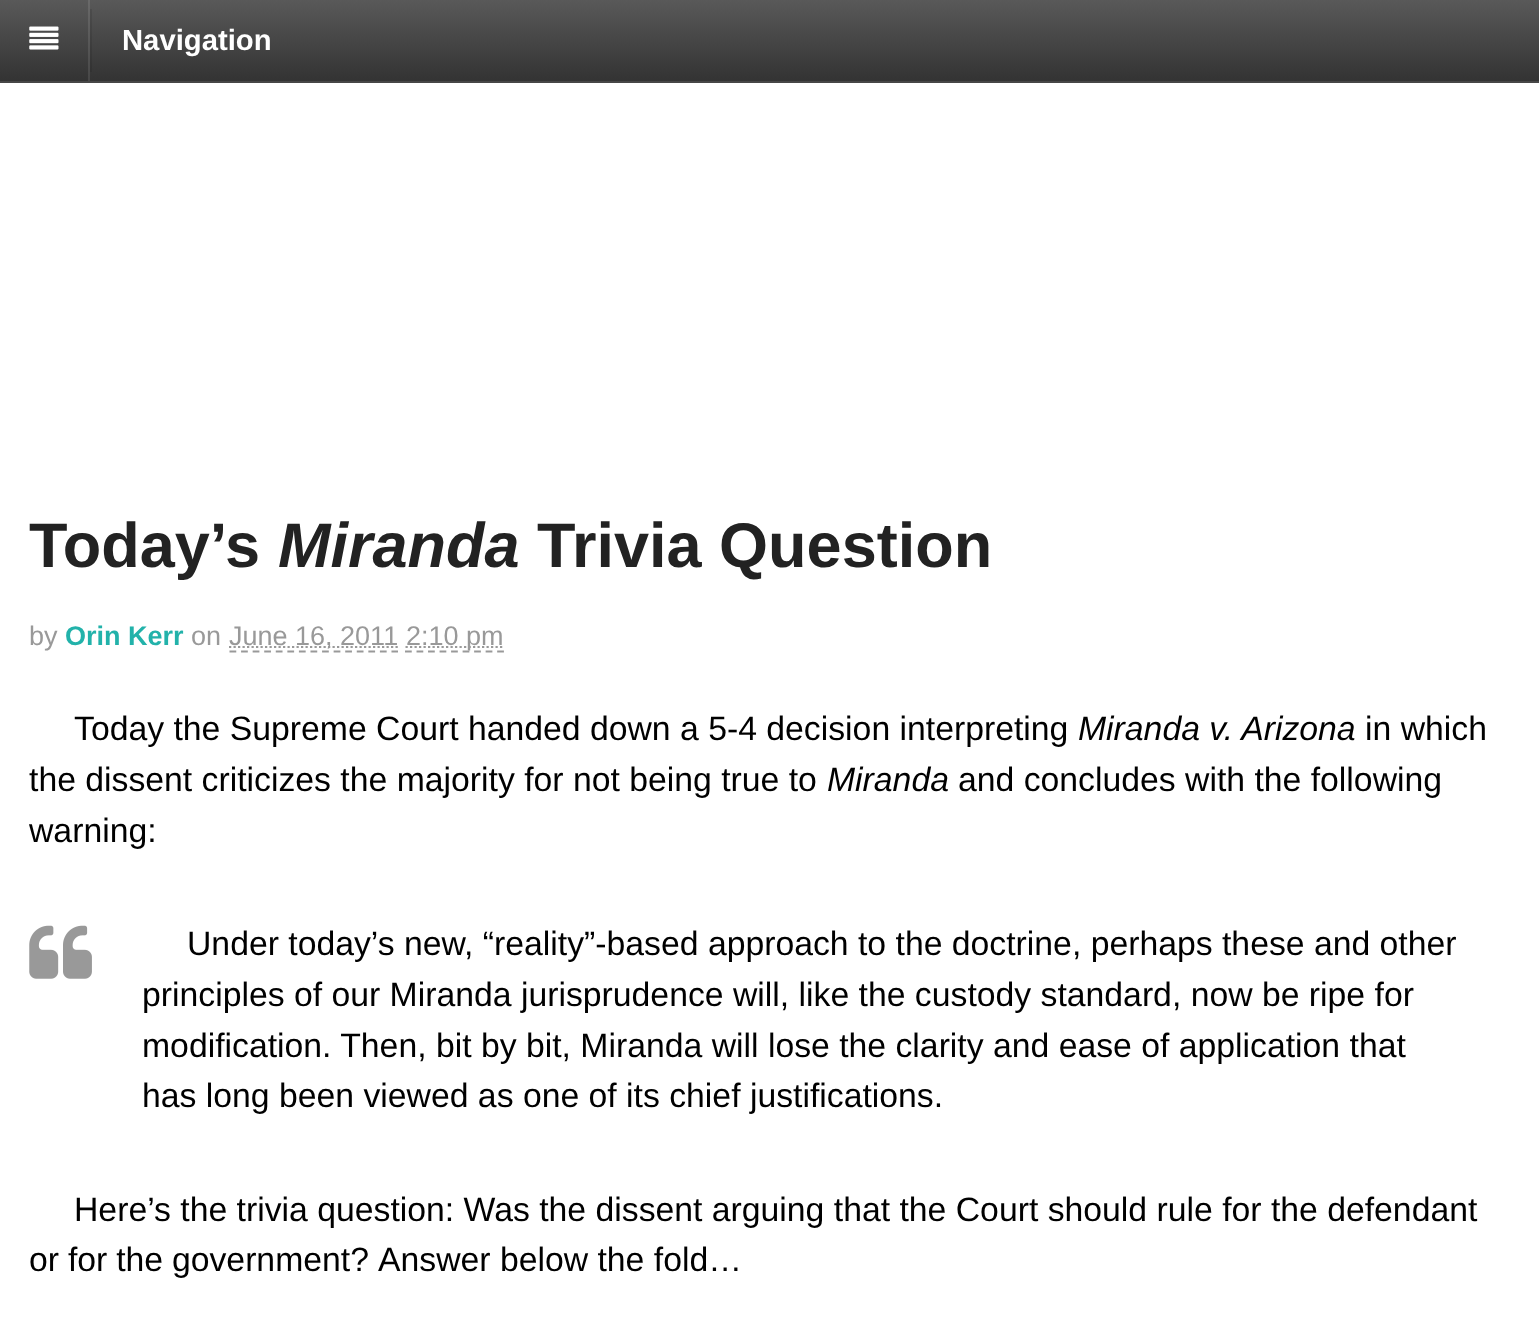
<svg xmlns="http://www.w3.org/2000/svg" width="1539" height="1332">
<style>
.a{font:bold 29.25px Liberation Sans;fill:#fff}
.b{font:bold 63px Liberation Sans;fill:#222}
.c{font:italic bold 63px Liberation Sans;fill:#222}
.d{font:27px Liberation Sans;fill:#999}
.e{font:bold 27px Liberation Sans;fill:#22b2aa}
.f{font:33.75px Liberation Sans;fill:#000}
.g{font:italic 33.75px Liberation Sans;fill:#000}
</style>
<defs>
<linearGradient id="g1" gradientUnits="userSpaceOnUse" x1="770" y1="0" x2="770" y2="81"><stop offset="0" stop-color="#595959"/><stop offset="1" stop-color="#333"/></linearGradient>
<linearGradient id="g2" gradientUnits="userSpaceOnUse" x1="770" y1="0" x2="770" y2="81"><stop offset="0" stop-color="#505050"/><stop offset="1" stop-color="#2e2e2e"/></linearGradient>
<linearGradient id="g3" gradientUnits="userSpaceOnUse" x1="770" y1="0" x2="770" y2="81"><stop offset="0" stop-color="#6a6a6a"/><stop offset="1" stop-color="#474747"/></linearGradient>
</defs>
<rect width="100%" height="100%" fill="#fff"/>
<path fill="url(#g1)" d="M0 0h1539v81H0z"/>
<path fill="url(#g2)" d="M90 9h2v63H90z"/>
<path fill="url(#g3)" d="M88 0h2v81H88z"/>
<path fill="#474747" d="M0 81h1539v2H0z"/>
<image href="1.png" x="29" y="26" width="30" height="24"/>
<path fill="none" stroke="#999" stroke-width="2.2" stroke-dasharray="6.75 4.82" d="M229.5 651.5h168.5"/>
<path fill="none" stroke="#999" stroke-width="2.2" stroke-dasharray="2.25 2.25" d="M229 647h169"/>
<path fill="none" stroke="#999" stroke-width="2.2" stroke-dasharray="6.75 4.77" d="M405 651.5h99"/>
<path fill="none" stroke="#999" stroke-width="2.2" stroke-dasharray="2.25 2.25" d="M405.5 647h97.5"/>
<image href="2.png" x="29" y="925" width="63" height="54"/>
<text class="a" x="122" y="50">Navigation</text>
<text class="b" x="29" y="567">Today’s</text>
<text class="c" x="278" y="567">Miranda</text>
<text class="b" x="537" y="567">Trivia Question</text>
<text class="d" x="29" y="645">by</text>
<text class="e" x="65" y="645">Orin Kerr</text>
<text class="d" x="191" y="645">on</text>
<text class="d" x="229" y="645">June 16, 2011</text>
<text class="d" x="406" y="645">2:10 pm</text>
<text class="f" x="74" y="740">Today the Supreme Court handed down a 5-4 decision interpreting</text>
<text class="g" x="1078" y="740">Miranda v. Arizona</text>
<text class="f" x="1365" y="740">in which</text>
<text class="f" x="29" y="791">the dissent criticizes the majority for not being true to</text>
<text class="g" x="827" y="791">Miranda</text>
<text class="f" x="958" y="791">and concludes with the following</text>
<text class="f" x="29" y="842">warning:</text>
<text class="f" x="187" y="955">Under today’s new, “reality”-based approach to the doctrine, perhaps these and other</text>
<text class="f" x="142" y="1006">principles of our Miranda jurisprudence will, like the custody standard, now be ripe for</text>
<text class="f" x="142" y="1057">modification. Then, bit by bit, Miranda will lose the clarity and ease of application that</text>
<text class="f" x="142" y="1107">has long been viewed as one of its chief justifications.</text>
<text class="f" x="74" y="1221">Here’s the trivia question: Was the dissent arguing that the Court should rule for the defendant</text>
<text class="f" x="29" y="1271" word-spacing="-0.5">or for the government?</text>
<text class="f" x="378" y="1271">Answer below the fold…</text>
</svg>
